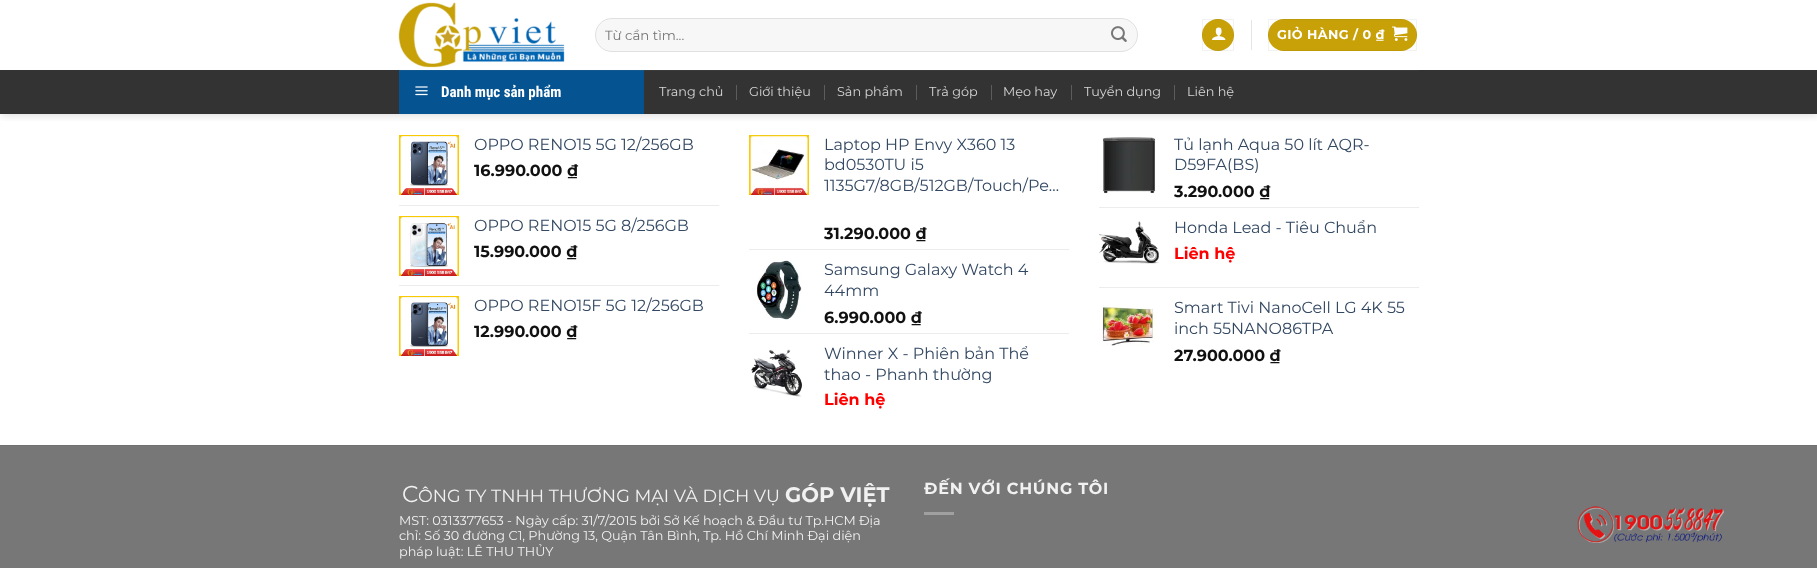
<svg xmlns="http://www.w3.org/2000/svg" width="1817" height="568">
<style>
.a{font:13.25px Montserrat;fill:#757575}
.b{font:bold 12.8px Montserrat;letter-spacing:0.4px;fill:#fff}
.c{font:bold 15px Roboto Condensed;fill:#fff}
.d{font:12.8px Montserrat;fill:#d6d6d6}
.e{font:16px Montserrat;fill:#334862}
.f{font:bold 16px Montserrat;fill:#111}
.g{font:bold 16px Montserrat;fill:#f00}
.h{font:23px Montserrat;fill:#f1f1f1}
.i{font:17.6px Montserrat;fill:#f1f1f1}
.j{font:bold 21px Montserrat;fill:#f1f1f1}
.k{font:12.8px Montserrat;fill:#f1f1f1}
.l{font:bold 16px Montserrat;letter-spacing:0.75px;fill:#f1f1f1}
</style>
<defs>
<clipPath id="clip1"><path d="M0 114h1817v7H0z"/></clipPath>
</defs>
<rect width="100%" height="100%" fill="#fff"/>
<g clip-path="url(#clip1)">
<path fill="#00000026" filter="blur(5px)" d="M1 1h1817v114H1z"/>
</g>
<image href="1.png" x="398" y="2" width="167" height="66"/>
<rect fill="#f7f7f7" x="595" y="18" width="543" height="34" rx="17"/>
<rect fill="none" stroke="#00000017" x="595.5" y="18.5" width="542" height="33" rx="16.5"/>
<image href="2.png" x="1111" y="26" width="16" height="16"/>
<circle fill="#c8a108" cx="1218" cy="35" r="16"/>
<path fill="none" stroke="#0000000d" d="M1202.5 19.5h31v31H1202.5z"/>
<image href="3.png" x="1212" y="27" width="14" height="13"/>
<path fill="#e5e5e5" d="M1251 20h1v30H1251z"/>
<rect fill="#c8a108" x="1268" y="19" width="149" height="32" rx="16"/>
<path fill="none" stroke="#0000000d" d="M1268.5 19.5h148v31H1268.5z"/>
<image href="4.png" x="1392" y="26" width="16" height="15"/>
<path fill="#333" d="M0 70h1817v44H0z"/>
<path fill="#3a3a3a" d="M644 70h775v1H644z"/>
<path fill="#055491" d="M399 71h245v43H399z"/>
<path fill="#10588e" d="M399 70h245v1H399z"/>
<image href="5.png" x="415" y="86" width="13" height="10"/>
<path fill="#5c5c5c" d="M736 85h1v15H736z"/>
<path fill="#5c5c5c" d="M824 85h1v15H824z"/>
<path fill="#5c5c5c" d="M916 85h1v15H916z"/>
<path fill="#5c5c5c" d="M991 85h1v15H991z"/>
<path fill="#5c5c5c" d="M1071 85h1v15H1071z"/>
<path fill="#5c5c5c" d="M1174 85h1v15H1174z"/>
<image href="6.png" x="399" y="135" width="60" height="60"/>
<path fill="#ececec" d="M399 205h320v1H399z"/>
<image href="7.png" x="399" y="216" width="60" height="60"/>
<path fill="#ececec" d="M399 285h320v1H399z"/>
<image href="8.png" x="399" y="296" width="60" height="60"/>
<image href="9.png" x="749" y="135" width="60" height="60"/>
<path fill="#ececec" d="M749 249h320v1H749z"/>
<image href="10.png" x="756" y="260" width="46" height="60"/>
<path fill="#ececec" d="M749 333h320v1H749z"/>
<image href="11.png" x="751" y="349" width="51" height="48"/>
<image href="12.png" x="1102" y="137" width="54" height="57"/>
<path fill="#ececec" d="M1099 207h320v1H1099z"/>
<image href="13.png" x="1099" y="221" width="60" height="43"/>
<path fill="#ececec" d="M1099 287h320v1H1099z"/>
<image href="14.png" x="1099" y="305" width="58" height="41"/>
<path fill="#777" d="M0 446h1817v122H0z"/>
<path fill="#717171" d="M0 445h1817v1H0z"/>
<path fill="#a0a0a0" d="M924 512h30v3H924z"/>
<image href="15.png" x="1577" y="506" width="147" height="37"/>
<text class="a" x="605" y="40">Từ cần tìm...</text>
<text class="b" x="1277" y="39">GIỎ HÀNG / 0 ₫</text>
<text class="c" x="441" y="97">Danh mục sản phẩm</text>
<text class="d" x="659" y="96">Trang chủ</text>
<text class="d" x="749" y="96">Giới thiệu</text>
<text class="d" x="837" y="96">Sản phẩm</text>
<text class="d" x="929" y="96">Trả góp</text>
<text class="d" x="1003" y="96">Mẹo hay</text>
<text class="d" x="1084" y="96">Tuyển dụng</text>
<text class="d" x="1187" y="96">Liên hệ</text>
<text class="e" x="474" y="150">OPPO RENO15 5G 12/256GB</text>
<text class="f" x="474" y="176">16.990.000 ₫</text>
<text class="e" x="474" y="231">OPPO RENO15 5G 8/256GB</text>
<text class="f" x="474" y="257">15.990.000 ₫</text>
<text class="e" x="474" y="311">OPPO RENO15F 5G 12/256GB</text>
<text class="f" x="474" y="337">12.990.000 ₫</text>
<text class="e" x="824" y="150">Laptop HP Envy X360 13</text>
<text class="e" x="824" y="170">bd0530TU i5</text>
<text class="e" x="824" y="191">1135G7/8GB/512GB/Touch/Pe…</text>
<text class="f" x="824" y="239">31.290.000 ₫</text>
<text class="e" x="824" y="275">Samsung Galaxy Watch 4</text>
<text class="e" x="824" y="296">44mm</text>
<text class="f" x="824" y="323">6.990.000 ₫</text>
<text class="e" x="824" y="359">Winner X - Phiên bản Thể</text>
<text class="e" x="824" y="380">thao - Phanh thường</text>
<text class="g" x="824" y="405">Liên hệ</text>
<text class="e" x="1174" y="150">Tủ lạnh Aqua 50 lít AQR-</text>
<text class="e" x="1174" y="170">D59FA(BS)</text>
<text class="f" x="1174" y="197">3.290.000 ₫</text>
<text class="e" x="1174" y="233">Honda Lead - Tiêu Chuẩn</text>
<text class="g" x="1174" y="259">Liên hệ</text>
<text class="e" x="1174" y="313">Smart Tivi NanoCell LG 4K 55</text>
<text class="e" x="1174" y="334">inch 55NANO86TPA</text>
<text class="f" x="1174" y="361">27.900.000 ₫</text>
<text class="h" x="402" y="502">C</text>
<text class="i" x="418" y="502">ÔNG TY TNHH THƯƠNG MẠI VÀ DỊCH VỤ</text>
<text class="j" x="785" y="502">GÓP VIỆT</text>
<text class="k" x="399" y="525">MST: 0313377653 - Ngày cấp: 31/7/2015 bởi Sở Kế hoạch &amp; Đầu tư Tp.HCM Địa</text>
<text class="k" x="399" y="540">chỉ: Số 30 đường C1, Phường 13, Quận Tân Bình, Tp. Hồ Chí Minh Đại diện</text>
<text class="k" x="399" y="556">pháp luật: LÊ THU THỦY</text>
<text class="l" x="924" y="494">ĐẾN VỚI CHÚNG TÔI</text>
</svg>
